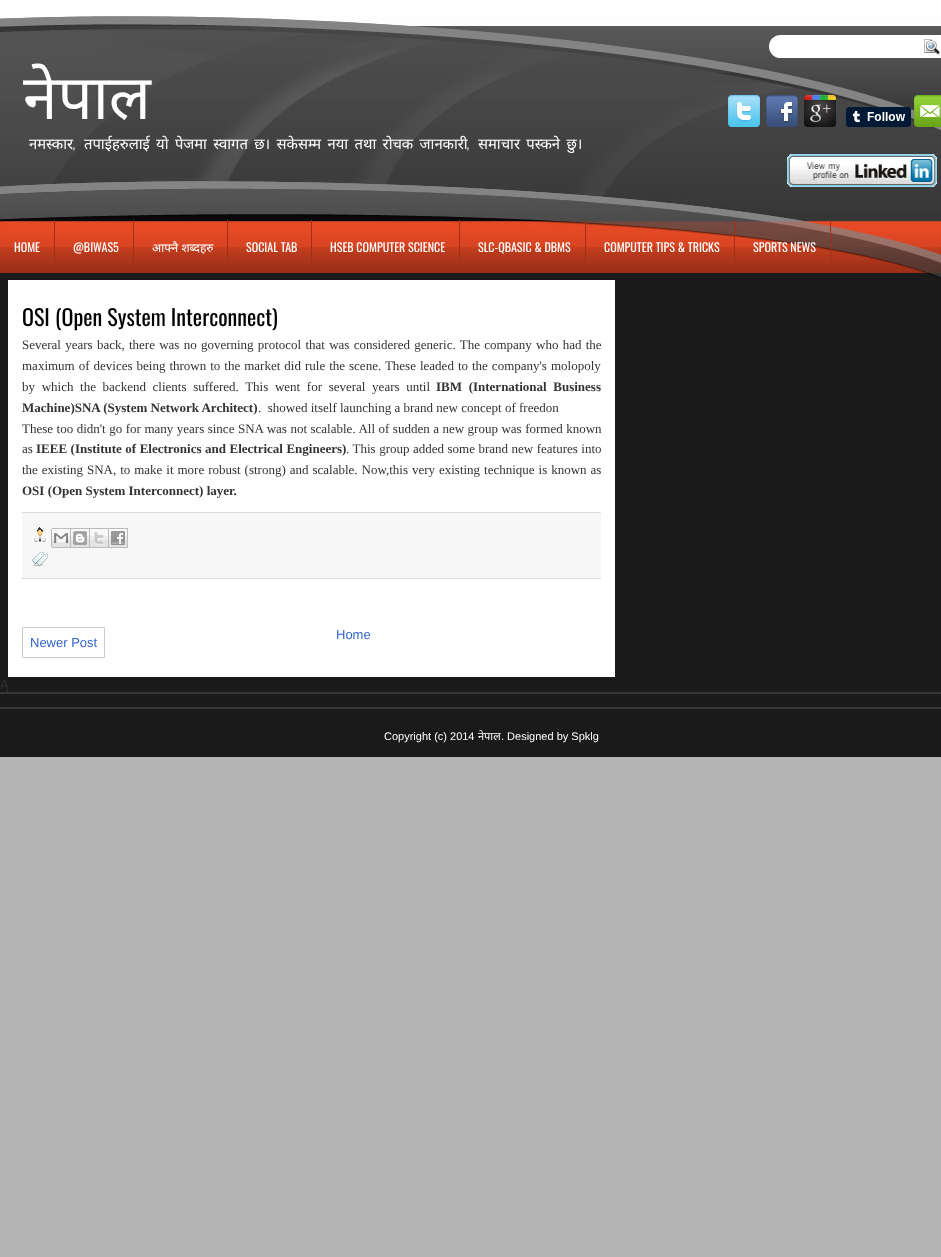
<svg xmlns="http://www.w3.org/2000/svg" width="941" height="1257">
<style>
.a{font:62px Noto Sans;fill:#fff}
.b{font:14.8px Noto Sans;fill:#fff}
.c{font:300 14.8px Shadows Into Light;fill:#fff}
.d{font:12px Oswald;fill:#fff}
.e{font:12px Noto Sans;fill:#fff}
.f{font:22.1px Oswald;fill:#000}
.g{font:13px Liberation Serif;fill:#333}
.h{font:bold 13px Liberation Serif;fill:#333}
.i{font:13px Liberation Sans;fill:#36c}
.j{font:13px Liberation Sans;fill:#333}
.k{font:11px Liberation Sans;fill:#fff}
.l{font:11px Noto Sans;fill:#fff}
</style>
<rect width="100%" height="100%" fill="#b4b4b4"/>
<image href="1.png" x="0" y="0" width="941" height="16"/>
<image href="2.png" x="0" y="16" width="941" height="157"/>
<image href="3.png" x="0" y="173" width="941" height="114"/>
<image href="4.png" x="728" y="95" width="32" height="32"/>
<image href="5.png" x="766" y="95" width="32" height="32"/>
<image href="6.png" x="804" y="95" width="32" height="32"/>
<image href="7.png" x="846" y="107" width="65" height="20"/>
<image href="8.png" x="914" y="95" width="27" height="32"/>
<image href="9.png" x="787" y="154" width="150" height="33"/>
<rect fill="#fff" x="769" y="35" width="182" height="23" rx="11.5"/>
<image href="10.png" x="924" y="39" width="16" height="16"/>
<path fill="#9f3017" d="M54 220h1v49H54z"/>
<path fill="#9f3017" d="M133 220h1v49H133z"/>
<path fill="#9f3017" d="M227 220h1v49H227z"/>
<path fill="#9f3017" d="M311 220h1v49H311z"/>
<path fill="#9f3017" d="M459 220h1v49H459z"/>
<path fill="#9f3017" d="M585 220h1v49H585z"/>
<path fill="#9f3017" d="M734 220h1v49H734z"/>
<path fill="#9f3017" d="M830 220h1v49H830z"/>
<path fill="#1a1a1a" d="M0 287h941v405H0z"/>
<path fill="#fff" d="M8 280h607v397H8z"/>
<path fill="#f7f7f7" d="M22 513h579v65H22z"/>
<path fill="#ddd" d="M22 512h579v1H22z"/>
<path fill="#ddd" d="M22 578h579v1H22z"/>
<image href="11.png" x="34" y="527" width="12" height="15"/>
<image href="12.png" x="51" y="528" width="20" height="20"/>
<image href="13.png" x="71" y="528" width="19" height="20"/>
<image href="14.png" x="90" y="528" width="19" height="20"/>
<image href="15.png" x="109" y="528" width="19" height="20"/>
<image href="16.png" x="32" y="552" width="16" height="14"/>
<path fill="none" stroke="#ccc" d="M22.5 627.5h82v30H22.5z"/>
<path fill="#1a1a1a" d="M0 694h941v13H0z"/>
<path fill="#363636" d="M0 692h941v2H0z"/>
<path fill="#1a1a1a" d="M0 709h941v48H0z"/>
<path fill="#363636" d="M0 707h941v2H0z"/>
<text class="a" x="23" y="119">नेपाल</text>
<text class="b" x="29" y="149">नमस्कार</text>
<text class="b" x="84" y="149" word-spacing="2.5">तपाईहरुलाई यो पेजमा स्वागत छ। सकेसम्म नया तथा रोचक जानकारी</text>
<text class="b" x="478" y="149" word-spacing="2.5">समाचार पस्कने छु।</text>
<text class="c" x="73" y="149">,</text>
<text class="c" x="467" y="149">,</text>
<text class="d" x="14" y="252">HOME</text>
<text class="d" x="73" y="252">@BIWAS5</text>
<text class="e" x="152" y="252">आफ्नै शब्दहरु</text>
<text class="d" x="246" y="252">SOCIAL TAB</text>
<text class="d" x="330" y="252">HSEB COMPUTER SCIENCE</text>
<text class="d" x="478" y="252">SLC-QBASIC &amp; DBMS</text>
<text class="d" x="604" y="252">COMPUTER TIPS &amp; TRICKS</text>
<text class="d" x="753" y="252">SPORTS NEWS</text>
<text class="f" x="22" y="326">OSI (Open System Interconnect)</text>
<text class="g" x="22" y="349" word-spacing="1">Several years back, there was no governing protocol that was considered generic. The company who had the</text>
<text class="g" x="22" y="370" word-spacing="0.75">maximum of devices being thrown to the market did rule the scene. These leaded to the company's molopoly</text>
<text class="g" x="22" y="391" word-spacing="3.4">by which the backend clients suffered. This went for several years until</text>
<text class="h" x="436" y="391" word-spacing="3.4">IBM (International Business</text>
<text class="h" x="22" y="412">Machine)SNA (System Network Architect)</text>
<text class="g" xml:space="preserve" x="258" y="412">.  showed itself launching a brand new concept of freedon</text>
<text class="g" x="22" y="433" word-spacing="0.25">These too didn't go for many years since SNA was not scalable. All of sudden a new group was formed known</text>
<text class="g" x="22" y="453">as</text>
<text class="h" x="36" y="453" word-spacing="0.25">IEEE (Institute of Electronics and Electrical Engineers)</text>
<text class="g" x="346" y="453" word-spacing="0.25">. This group added some brand new features into</text>
<text class="g" x="22" y="474" word-spacing="0.7">the existing SNA, to make it more robust (strong) and scalable. Now,this very existing technique is known as</text>
<text class="h" x="22" y="495">OSI (Open System Interconnect) layer.</text>
<text class="i" x="336" y="639">Home</text>
<text class="i" x="30" y="647">Newer Post</text>
<text class="j" x="0" y="689">Ą</text>
<text class="k" x="384" y="740">Copyright (c) 2014</text>
<text class="l" x="478" y="740">नेपाल</text>
<text class="k" x="501" y="740">. Designed by Spklg</text>
</svg>
